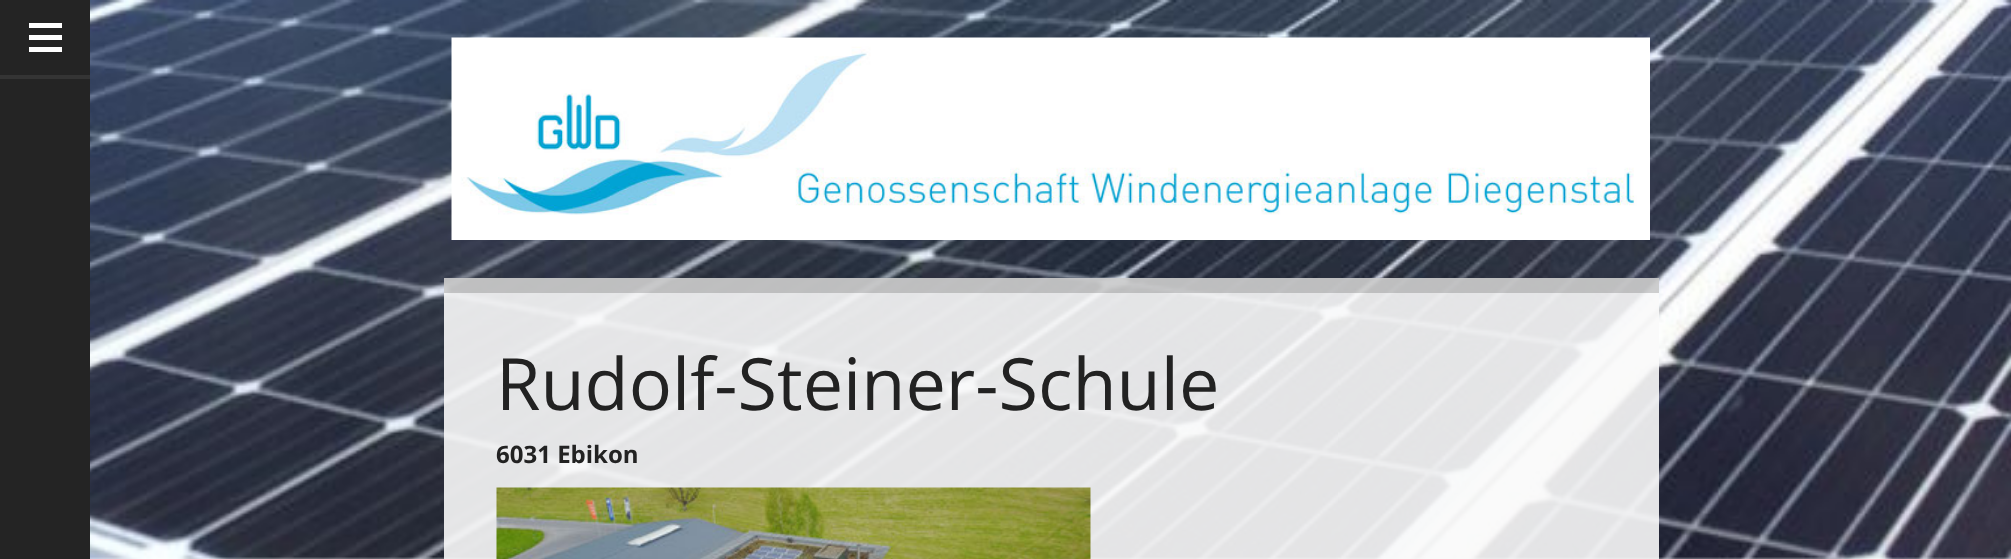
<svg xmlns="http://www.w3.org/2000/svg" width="2011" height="559">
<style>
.a{font:72px Open Sans;fill:#222}
.b{font:bold 24px Open Sans;fill:#222}
</style>
<rect width="100%" height="100%" fill="#fff"/>
<path fill="#242424" d="M0 0h90v559H0z"/>
<path fill="#fff" d="M29 35h33v5H29z"/>
<path fill="#fff" d="M29 23h33v5H29z"/>
<path fill="#fff" d="M29 47h33v5H29z"/>
<path fill="#343434" d="M0 75h90v4H0z"/>
<image href="1.png" x="90" y="0" width="1921" height="559"/>
<image href="2.png" x="451" y="37" width="1199" height="203"/>
<path fill="#fafafae6" d="M444 278h1215v281H444z"/>
<path fill="#22222233" d="M444 278h1215v15H444z"/>
<image href="3.png" x="496" y="487" width="595" height="72"/>
<text class="a" x="496" y="410">Rudolf-Steiner-Schule</text>
<text class="b" x="496" y="463">6031 Ebikon</text>
</svg>
